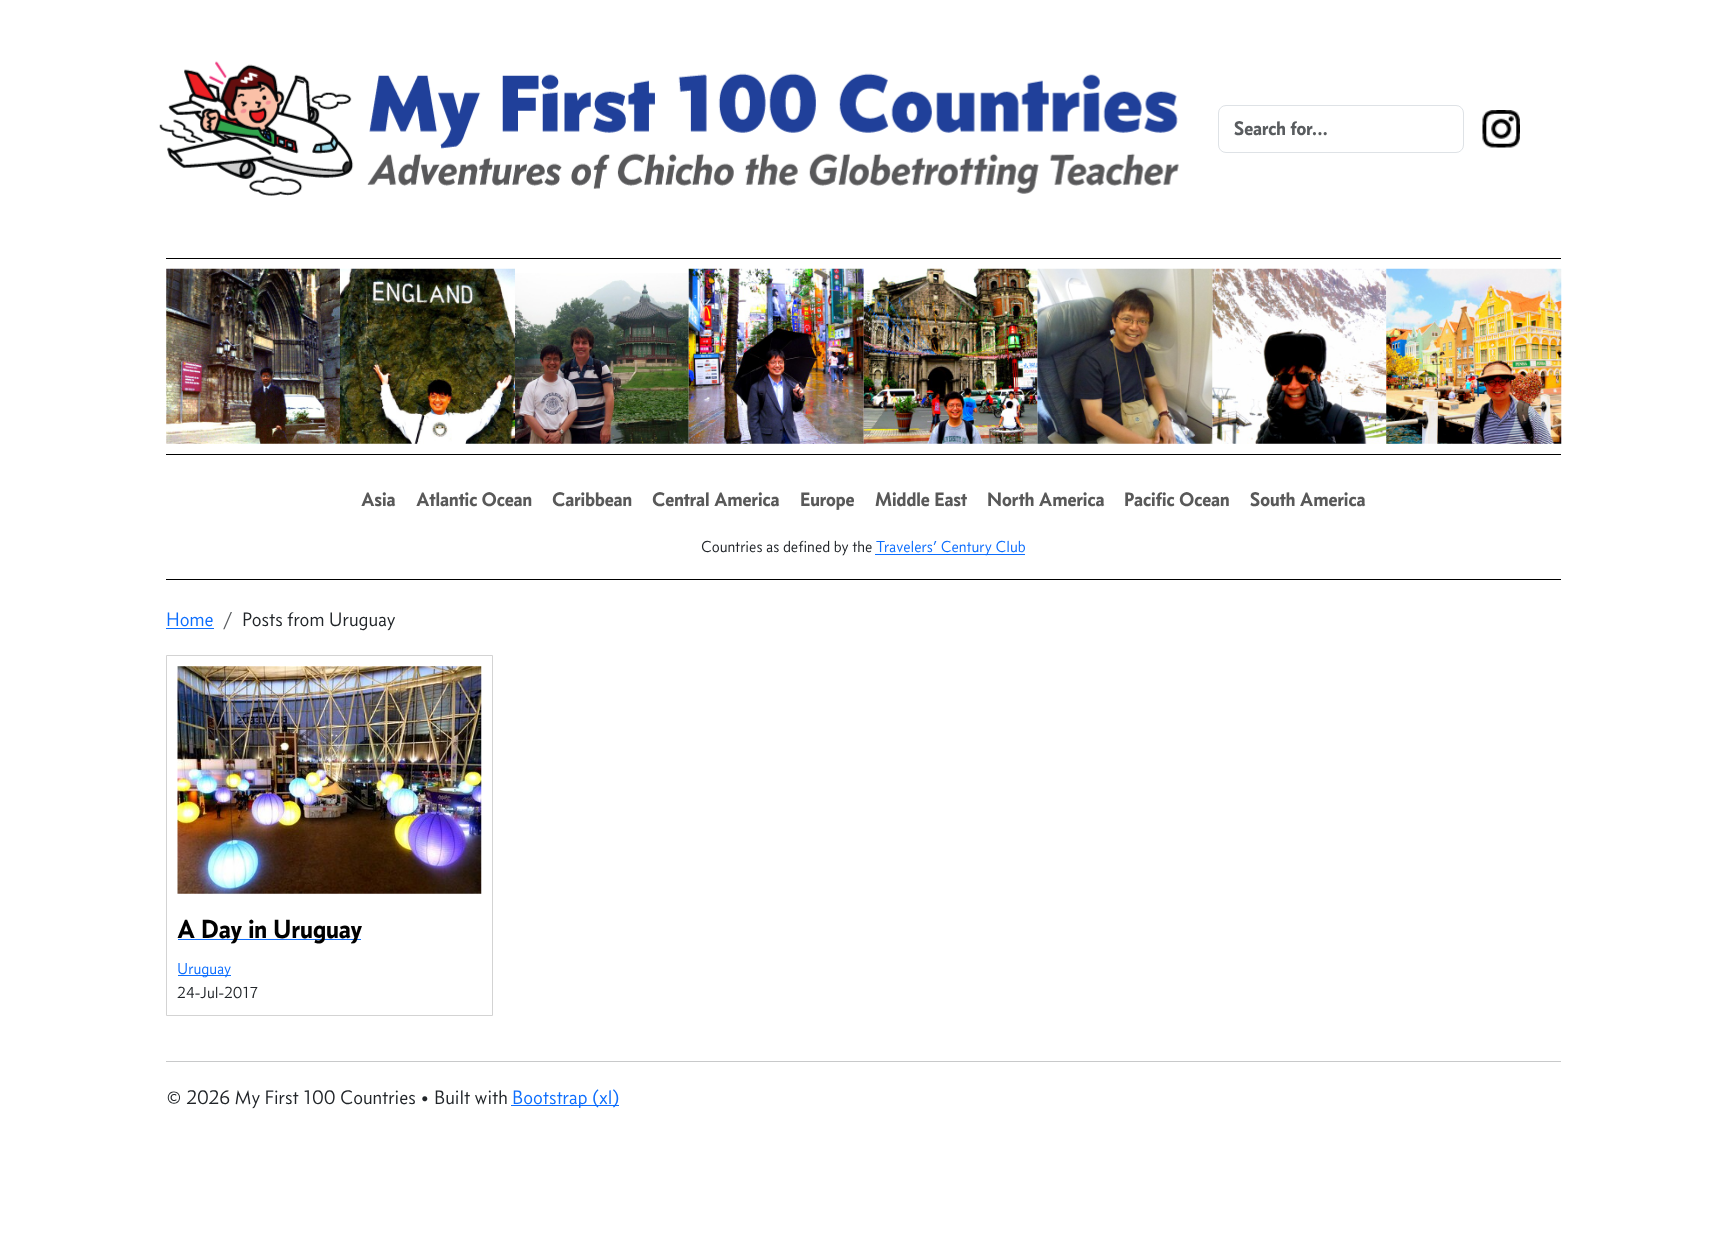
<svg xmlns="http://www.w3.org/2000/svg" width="1726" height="1242">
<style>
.a{font:bold 20px 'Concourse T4';fill:#595c5f}
.b{font:bold 20px 'Concourse T4';fill:#595959}
.c{font:300 16.25px 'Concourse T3';fill:#212529}
.d{font:300 16.25px 'Concourse T3';fill:#0d6efd}
.e{font:300 20px 'Concourse T3';fill:#0d6efd}
.f{font:300 20px 'Concourse T3';fill:#595c5f}
.g{font:300 20px 'Concourse T3';fill:#212529}
.h{font:bold 26.75px 'Concourse T4';fill:#000}
</style>
<rect width="100%" height="100%" fill="#fff"/>
<image href="1.png" x="159" y="61" width="1020" height="135"/>
<rect fill="none" stroke="#dee2e6" x="1218.5" y="105.5" width="245" height="47" rx="7.5"/>
<image href="2.png" x="1482" y="110" width="38" height="38"/>
<path fill="#000" d="M166 258h1395v1H166z"/>
<image href="3.png" x="166" y="268" width="174" height="176"/>
<image href="4.png" x="340" y="268" width="175" height="176"/>
<image href="5.png" x="515" y="273" width="174" height="171"/>
<image href="6.png" x="688" y="268" width="176" height="176"/>
<image href="7.png" x="863" y="268" width="175" height="176"/>
<image href="8.png" x="1037" y="268" width="176" height="176"/>
<image href="9.png" x="1212" y="268" width="175" height="176"/>
<image href="10.png" x="1386" y="268" width="176" height="176"/>
<path fill="#000" d="M166 454h1395v1H166z"/>
<path fill="#000" d="M166 579h1395v1H166z"/>
<path fill="#0d6efd" d="M875 554h150v1H875z"/>
<path fill="#0d6efd" d="M166 628h48v1H166z"/>
<path fill="none" stroke="#d3d3d3" d="M166.5 655.5h326v360H166.5z"/>
<image href="11.png" x="177" y="666" width="305" height="228"/>
<path fill="#0d6efd" d="M178 939h183v1H178z"/>
<path fill="#0d6efd" d="M178 975h53v1H178z"/>
<path fill="#c8c9ca" d="M166 1061h1395v1H166z"/>
<path fill="#0d6efd" d="M511 1105h108v1H511z"/>
<text class="a" x="1234" y="135">Search for...</text>
<text class="b" x="361" y="506">Asia</text>
<text class="b" x="416" y="506">Atlantic Ocean</text>
<text class="b" x="552" y="506">Caribbean</text>
<text class="b" x="652" y="506">Central America</text>
<text class="b" x="800" y="506">Europe</text>
<text class="b" x="875" y="506">Middle East</text>
<text class="b" x="987" y="506">North America</text>
<text class="b" x="1124" y="506">Pacific Ocean</text>
<text class="b" x="1250" y="506">South America</text>
<text class="c" x="701" y="552">Countries as defined by the</text>
<text class="d" x="876" y="552">Travelers’ Century Club</text>
<text class="e" x="166" y="626">Home</text>
<text class="f" x="223" y="626">/</text>
<text class="g" x="242" y="626">Posts from Uruguay</text>
<text class="h" x="177" y="938">A Day in Uruguay</text>
<text class="d" x="177" y="974">Uruguay</text>
<text class="c" x="177" y="998">24-Jul-2017</text>
<text class="g" x="166" y="1104">© 2026 My First 100 Countries • Built with</text>
<text class="e" x="512" y="1104">Bootstrap (xl)</text>
</svg>
